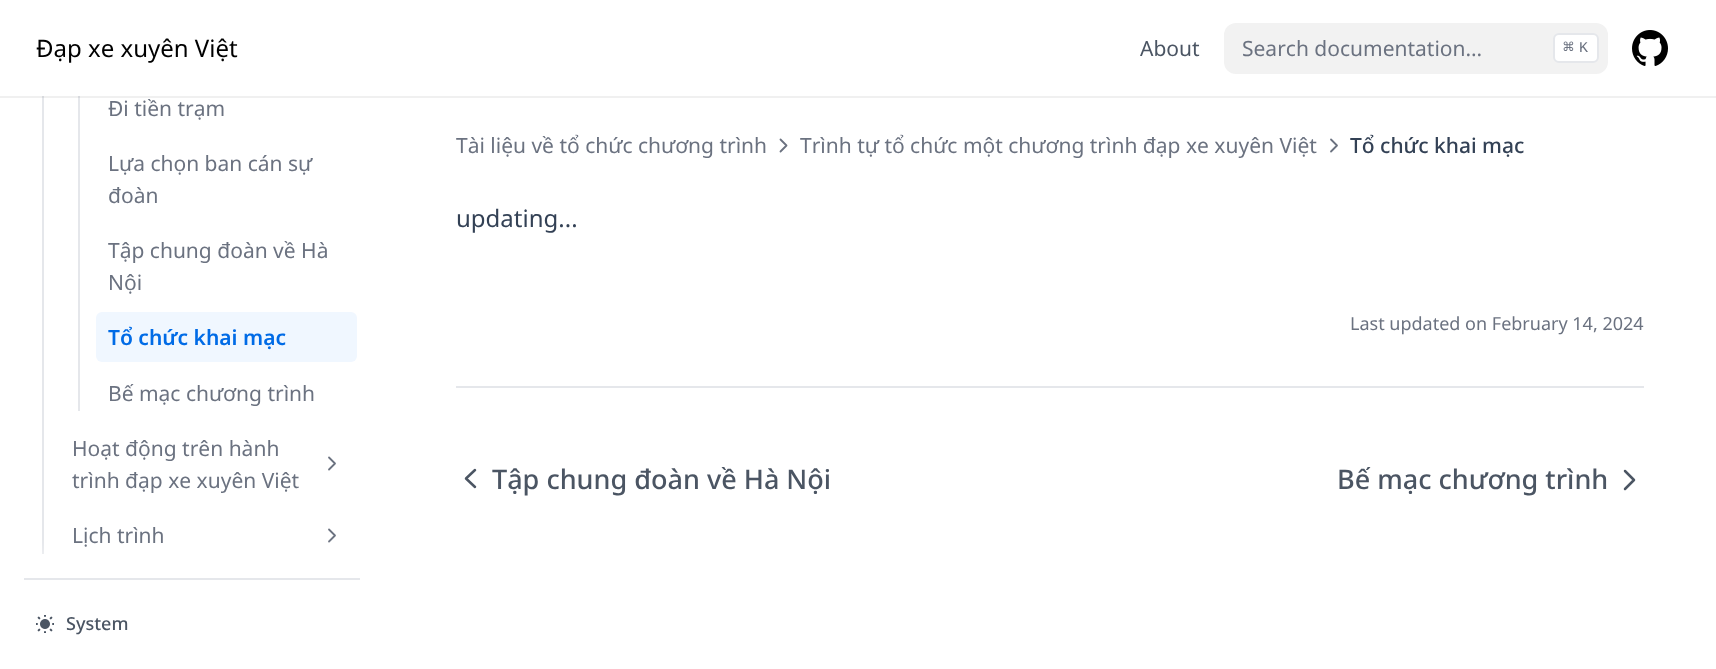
<svg xmlns="http://www.w3.org/2000/svg" width="1716" height="669">
<style>*{font-kerning:none!important;font-variant-ligatures:none!important}</style>
<style>
.a{font:24px Noto Sans;fill:#000}
.b{font:21px Noto Sans;fill:#4b5563}
.c{font:21px Noto Sans;fill:#6b7280}
.d{font:18px DejaVu Sans Mono;fill:#6b7280}
.e{font:15px Liberation Mono;fill:#6b7280}
.f{font:600 21px Noto Sans;fill:#006be6}
.g{font:500 18px Noto Sans;fill:#4b5563}
.h{font:500 21px Noto Sans;fill:#334155}
.i{font:24px Noto Sans;fill:#334155}
.j{font:18px Noto Sans;fill:#6b7280}
.k{font:500 27px Noto Sans;fill:#4b5563}
</style>
<defs>
<clipPath id="clip1"><path d="M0 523h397v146h-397zm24 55h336v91h-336z" clip-rule="evenodd"/></clipPath>
</defs>
<rect width="100%" height="100%" fill="#fff"/>
<path fill="#f0f0f0" d="M0 96h1716v2H0z"/>
<rect fill="#f2f2f2" x="1224" y="23" width="384" height="51" rx="12"/>
<rect fill="#fff" stroke="#e5e7eb" stroke-width="2" x="1554" y="34" width="44" height="28" rx="5"/>
<image href="1.png" x="1632" y="30" width="36" height="36"/>
<path fill="#e5e7eb" d="M42 96h2v458H42z"/>
<path fill="#d7d9dd" d="M42 96h2v2H42z"/>
<path fill="#e5e7eb" d="M78 96h2v315H78z"/>
<path fill="#d7d9dd" d="M78 96h2v2H78z"/>
<rect fill="#f0f7ff" x="96" y="312" width="261" height="50" rx="6"/>
<path fill="none" stroke="#6b7280" stroke-width="1.8" stroke-linecap="round" stroke-linejoin="round" d="M329 457.5l6 6l-6 6"/>
<path fill="none" stroke="#6b7280" stroke-width="1.8" stroke-linecap="round" stroke-linejoin="round" d="M329 529.5l6 6l-6 6"/>
<g clip-path="url(#clip1)">
<path fill="#fff" filter="blur(12px)" d="M24 560h336v91H24z"/>
</g>
<path fill="#e5e7eb" d="M24 578h336v2H24z"/>
<image href="2.png" x="36" y="615" width="18" height="18"/>
<path fill="none" stroke="#6b7280" stroke-width="1.8" stroke-linecap="round" stroke-linejoin="round" d="M780.5 139.5l6 6l-6 6"/>
<path fill="none" stroke="#6b7280" stroke-width="1.8" stroke-linecap="round" stroke-linejoin="round" d="M1331 139.5l6 6l-6 6"/>
<path fill="#e5e7eb" d="M456 386h1188v2H456z"/>
<path fill="none" stroke="#4b5563" stroke-width="2.5" stroke-linecap="round" stroke-linejoin="round" d="M475 487l-9-8.5l9-8.5"/>
<path fill="none" stroke="#4b5563" stroke-width="2.5" stroke-linecap="round" stroke-linejoin="round" d="M1625 471l9 9l-9 9"/>
<text class="a" x="36" y="57">Đạp xe xuyên Việt</text>
<text class="b" x="1140" y="56">About</text>
<text class="c" x="1242" y="56">Search documentation…</text>
<text class="d" x="1563" y="53">⌘</text>
<text class="e" x="1579" y="52">K</text>
<text class="c" x="108" y="116">Đi tiền trạm</text>
<text class="c" x="108" y="171">Lựa chọn ban cán sự</text>
<text class="c" x="108" y="203">đoàn</text>
<text class="c" x="108" y="258">Tập chung đoàn về Hà</text>
<text class="c" x="108" y="290">Nội</text>
<text class="f" x="108" y="345">Tổ chức khai mạc</text>
<text class="c" x="108" y="401">Bế mạc chương trình</text>
<text class="c" x="72" y="456">Hoạt động trên hành</text>
<text class="c" x="72" y="488">trình đạp xe xuyên Việt</text>
<text class="c" x="72" y="543">Lịch trình</text>
<text class="g" x="66" y="630">System</text>
<text class="c" x="456" y="153">Tài liệu về tổ chức chương trình</text>
<text class="c" x="800" y="153">Trình tự tổ chức một chương trình đạp xe xuyên Việt</text>
<text class="h" x="1350" y="153">Tổ chức khai mạc</text>
<text class="i" x="456" y="227">updating...</text>
<text class="j" x="1350" y="330">Last updated on February 14, 2024</text>
<text class="k" x="492" y="489">Tập chung đoàn về Hà Nội</text>
<text class="k" x="1337" y="489">Bế mạc chương trình</text>
</svg>
